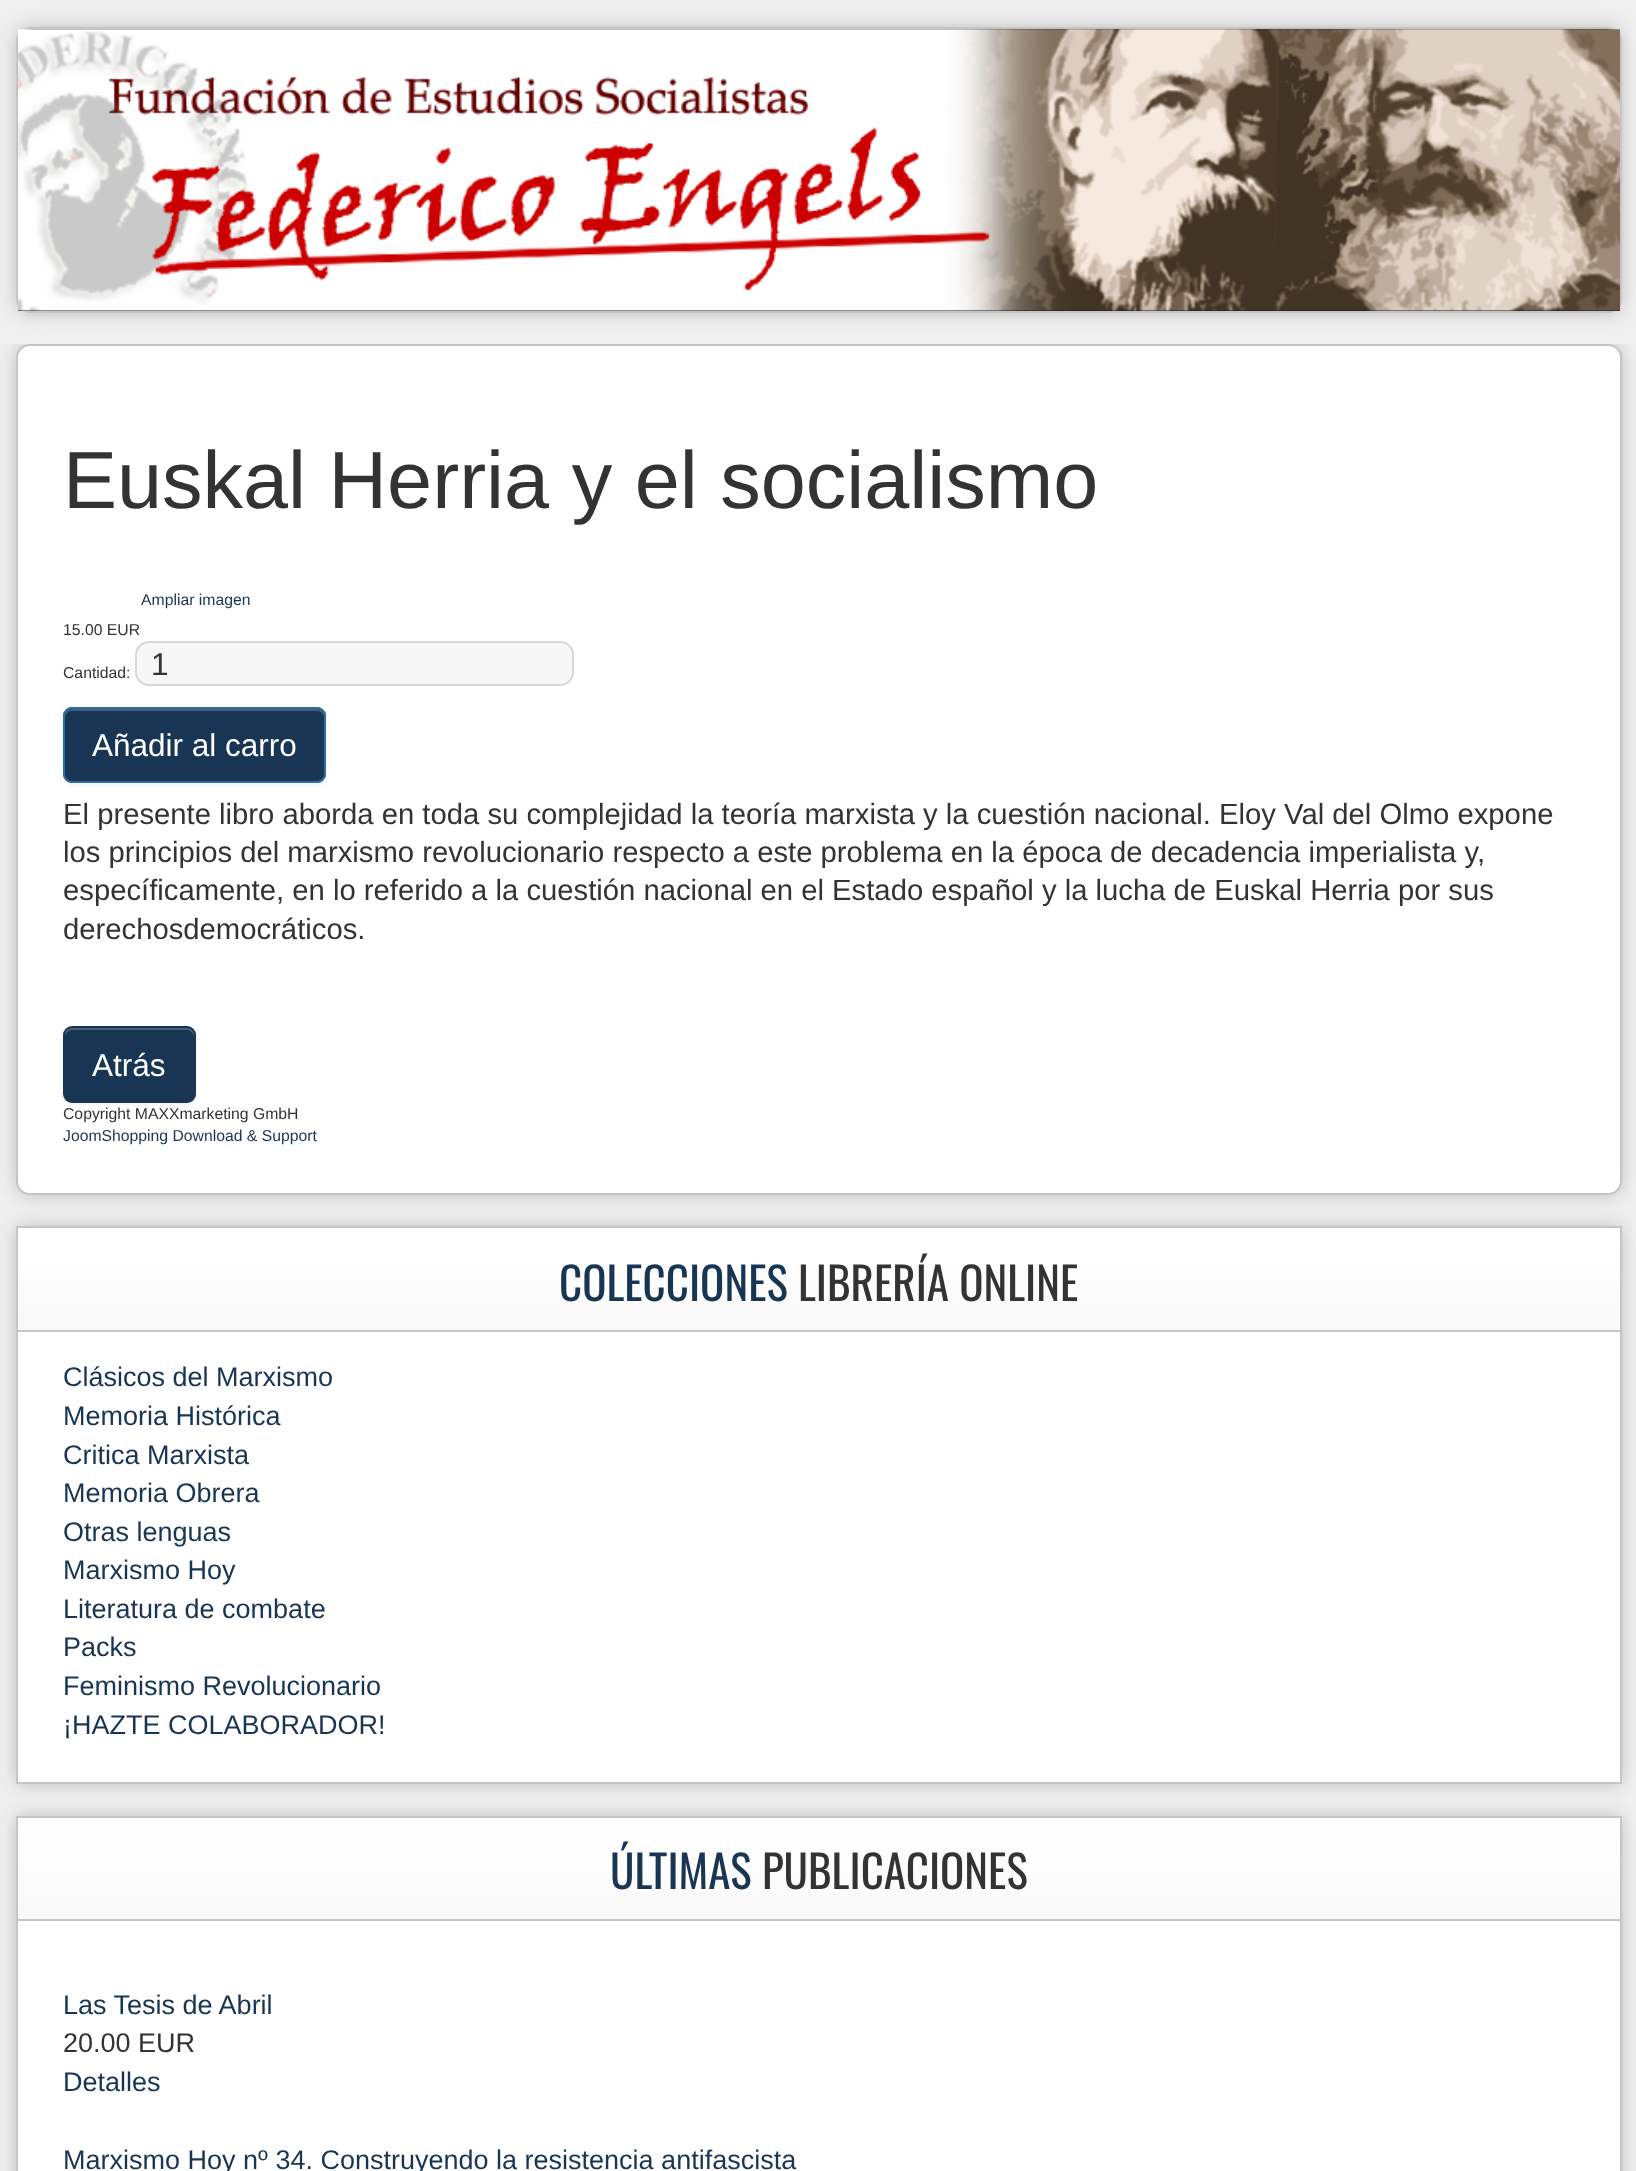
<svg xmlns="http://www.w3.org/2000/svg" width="1636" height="2171">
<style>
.a{font:81px Liberation Sans;fill:#333}
.b{font:15.75px Liberation Sans;fill:#183554}
.c{font:15.75px Liberation Sans;fill:#333}
.d{font:31.5px Liberation Sans;fill:#333}
.e{font:31.5px Liberation Sans;fill:#fff}
.f{font:29.25px Liberation Sans;fill:#333}
.g{font:45px Oswald;fill:#183554}
.h{font:45px Oswald;fill:#333}
.i{font:27px Liberation Sans;fill:#183554}
.j{font:27px Liberation Sans;fill:#333}
</style>
<defs>
<clipPath id="clip1"><path d="M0 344h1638v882H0z"/></clipPath>
<linearGradient id="g1" gradientUnits="userSpaceOnUse" x1="819" y1="1229" x2="819" y2="1330"><stop offset="0" stop-color="#fff"/><stop offset="1" stop-color="#f9f9f9"/></linearGradient>
<linearGradient id="g2" gradientUnits="userSpaceOnUse" x1="819" y1="1818" x2="819" y2="1919"><stop offset="0" stop-color="#fff"/><stop offset="1" stop-color="#f9f9f9"/></linearGradient>
</defs>
<rect width="100%" height="100%" fill="#f0f0f0"/>
<rect fill="#bdbdbd" filter="blur(9px)" x="16" y="27" width="1606" height="286" rx="14"/>
<rect fill="none" stroke="#c5c5c5" stroke-width="2" x="17" y="28" width="1604" height="284" rx="13"/>
<path fill="#1a1a1a" d="M32 29h1574c7.5 0 14 6.5 14 14v268h-1602v-268c0-7.5 6.5-14 14-14z"/>
<image href="1.png" x="18" y="29" width="1602" height="282"/>
<g clip-path="url(#clip1)">
<rect fill="#bdbdbd" filter="blur(9px)" x="16" y="344" width="1606" height="851" rx="14"/>
</g>
<rect fill="#fff" stroke="#c5c5c5" stroke-width="2" x="17" y="345" width="1604" height="849" rx="13"/>
<rect fill="#f7f7f7" stroke="#d8d8d8" stroke-width="2" x="136" y="642" width="437" height="43" rx="13"/>
<rect fill="#0000000d" filter="blur(2px)" x="63" y="709" width="263" height="76" rx="9"/>
<rect fill="#183554" x="63" y="707" width="263" height="76" rx="9"/>
<path fill="#465d76" d="M72 711h245c4 0 7 3 7 7v-2c0-4-3-7-7-7h-245c-4 0-7 3-7 7v2c0-4 3-7 7-7z"/>
<rect fill="none" stroke="#2e6da4" stroke-width="2" x="64" y="708" width="261" height="74" rx="8"/>
<rect fill="#0000000d" filter="blur(2px)" x="63" y="1028" width="133" height="77" rx="9"/>
<rect fill="#183554" x="63" y="1026" width="133" height="77" rx="9"/>
<path fill="#465d76" d="M72 1030h115c3 0 7 4 7 7v-2c0-4-3-7-7-7h-115c-4 0-7 3-7 7v2c0-3 3-7 7-7z"/>
<path fill="#bdbdbd" filter="blur(9px)" d="M16 1226h1606v558H16z"/>
<path fill="#fff" stroke="#c5c5c5" stroke-width="2" d="M17 1227h1604v556H17z"/>
<path fill="url(#g1)" d="M18 1271h1602v59H18z"/>
<path fill="#c5c5c5" d="M18 1330h1602v2H18z"/>
<path fill="#bdbdbd" filter="blur(9px)" d="M16 1816h1606v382H16z"/>
<path fill="#fff" d="M18 1921h1602v250H18z"/>
<path fill="none" stroke="#c5c5c5" stroke-width="2" d="M17 1817h1604v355H17z"/>
<path fill="url(#g2)" d="M18 1818h1602v101H18z"/>
<path fill="#c5c5c5" d="M18 1919h1602v2H18z"/>
<text class="a" x="63" y="508">Euskal Herria y el socialismo</text>
<text class="b" x="141" y="605">Ampliar imagen</text>
<text class="c" x="63" y="635">15.00 EUR</text>
<text class="c" x="63" y="678">Cantidad:</text>
<text class="d" x="151" y="675">1</text>
<text class="e" x="92" y="756">Añadir al carro</text>
<text class="f" x="63" y="824">El presente libro aborda en toda su complejidad la teoría marxista y la cuestión nacional. Eloy Val del Olmo expone</text>
<text class="f" x="63" y="862">los principios del marxismo revolucionario respecto a este problema en la época de decadencia imperialista y,</text>
<text class="f" x="63" y="900">específicamente, en lo referido a la cuestión nacional en el Estado español y la lucha de Euskal Herria por sus</text>
<text class="f" x="63" y="939">derechosdemocráticos.</text>
<text class="e" x="92" y="1076">Atrás</text>
<text class="c" x="63" y="1119">Copyright MAXXmarketing GmbH</text>
<text class="b" x="63" y="1141">JoomShopping Download &amp; Support</text>
<text class="g" x="559" y="1301">COLECCIONES</text>
<text class="h" x="798" y="1301">LIBRERÍA ONLINE</text>
<text class="i" x="63" y="1386">Clásicos del Marxismo</text>
<text class="i" x="63" y="1425">Memoria Histórica</text>
<text class="i" x="63" y="1464">Critica Marxista</text>
<text class="i" x="63" y="1502">Memoria Obrera</text>
<text class="i" x="63" y="1541">Otras lenguas</text>
<text class="i" x="63" y="1579">Marxismo Hoy</text>
<text class="i" x="63" y="1618">Literatura de combate</text>
<text class="i" x="63" y="1656">Packs</text>
<text class="i" x="63" y="1695">Feminismo Revolucionario</text>
<text class="i" x="63" y="1734">¡HAZTE COLABORADOR!</text>
<text class="g" x="610" y="1889">ÚLTIMAS</text>
<text class="h" x="762" y="1889">PUBLICACIONES</text>
<text class="i" x="63" y="2014">Las Tesis de Abril</text>
<text class="j" x="63" y="2052">20.00 EUR</text>
<text class="i" x="63" y="2091">Detalles</text>
<text class="i" x="63" y="2169">Marxismo Hoy nº 34. Construyendo la resistencia antifascista</text>
</svg>
